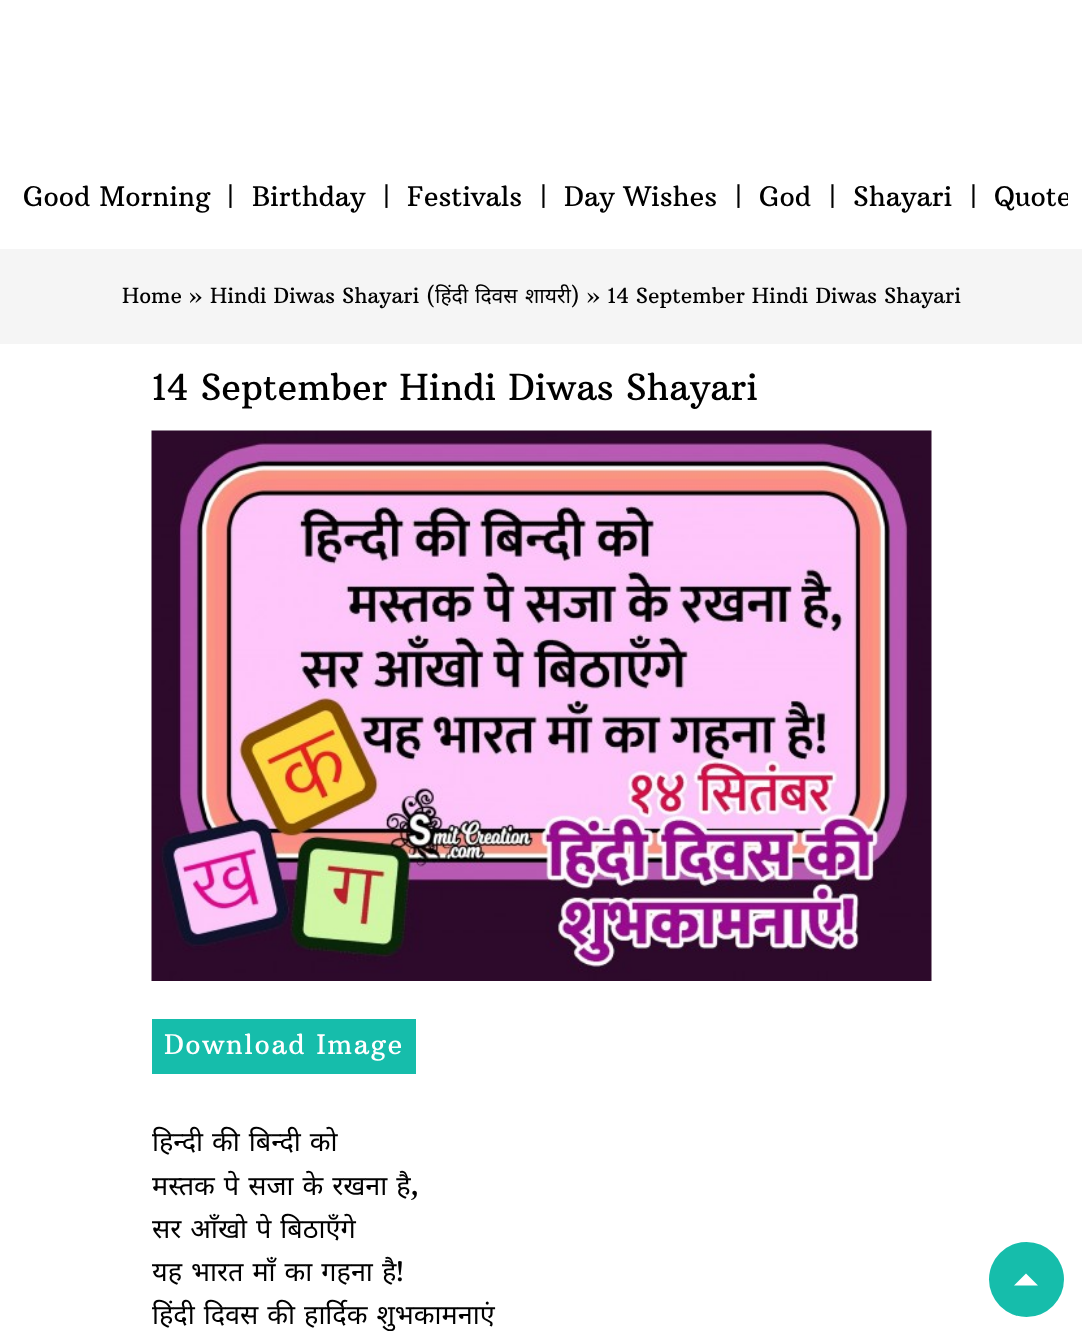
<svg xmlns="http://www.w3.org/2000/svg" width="1082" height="1331">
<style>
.a{font:27px Arbutus Slab;fill:#000}
.b{font:21px Arbutus Slab;fill:#000}
.c{font:21px Noto Sans;fill:#000}
.d{font:36px Arbutus Slab;fill:#000}
.e{font:27px Arbutus Slab;letter-spacing:1.5px;fill:#fff}
.f{font:27px Noto Sans;fill:#000}
</style>
<defs>
<clipPath id="clip1"><path d="M15 161h1053v73H15z"/></clipPath>
</defs>
<rect width="100%" height="100%" fill="#fff"/>
<path fill="#f5f5f5" d="M0 249h1082v95H0z"/>
<image href="1.png" x="151" y="430" width="781" height="551"/>
<path fill="#16bdab" d="M152 1019h264v55H152z"/>
<circle fill="#16bdab" cx="1026.5" cy="1279.5" r="37.5"/>
<path fill="#fff" d="M1038 1285.5h-24l12-12z"/>
<text class="a" x="23" y="206">Good Morning</text>
<text class="a" x="226" y="206">|</text>
<text class="a" x="252" y="206">Birthday</text>
<text class="a" x="382" y="206">|</text>
<text class="a" x="407" y="206">Festivals</text>
<text class="a" x="539" y="206">|</text>
<text class="a" x="564" y="206">Day Wishes</text>
<text class="a" x="734" y="206">|</text>
<text class="a" x="759" y="206">God</text>
<text class="a" x="828" y="206">|</text>
<text class="a" x="853" y="206">Shayari</text>
<text class="a" x="969" y="206">|</text>
<g clip-path="url(#clip1)">
<text class="a" x="994" y="206">Quote</text>
</g>
<text class="b" x="122" y="303">Home » Hindi Diwas Shayari (</text>
<text class="c" x="435" y="303">हिंदी</text>
<text class="c" x="475" y="303">दिवस</text>
<text class="c" x="525" y="303">शायरी</text>
<text class="b" x="571" y="303">) » 14 September Hindi Diwas Shayari</text>
<text class="d" x="152" y="400">14 September Hindi Diwas Shayari</text>
<text class="e" x="164" y="1054">Download Image</text>
<text class="f" x="152" y="1151" word-spacing="2">हिन्दी की बिन्दी को</text>
<text class="f" x="152" y="1195" word-spacing="2">मस्तक पे सजा के रखना है</text>
<text class="a" x="410" y="1195">,</text>
<text class="f" x="152" y="1238" word-spacing="2">सर आँखो पे बिठाएँगे</text>
<text class="f" x="152" y="1281" word-spacing="2">यह भारत माँ का गहना है</text>
<text class="a" x="396" y="1281">!</text>
<text class="f" x="152" y="1324" word-spacing="2">हिंदी दिवस की हार्दिक शुभकामनाएं</text>
</svg>
